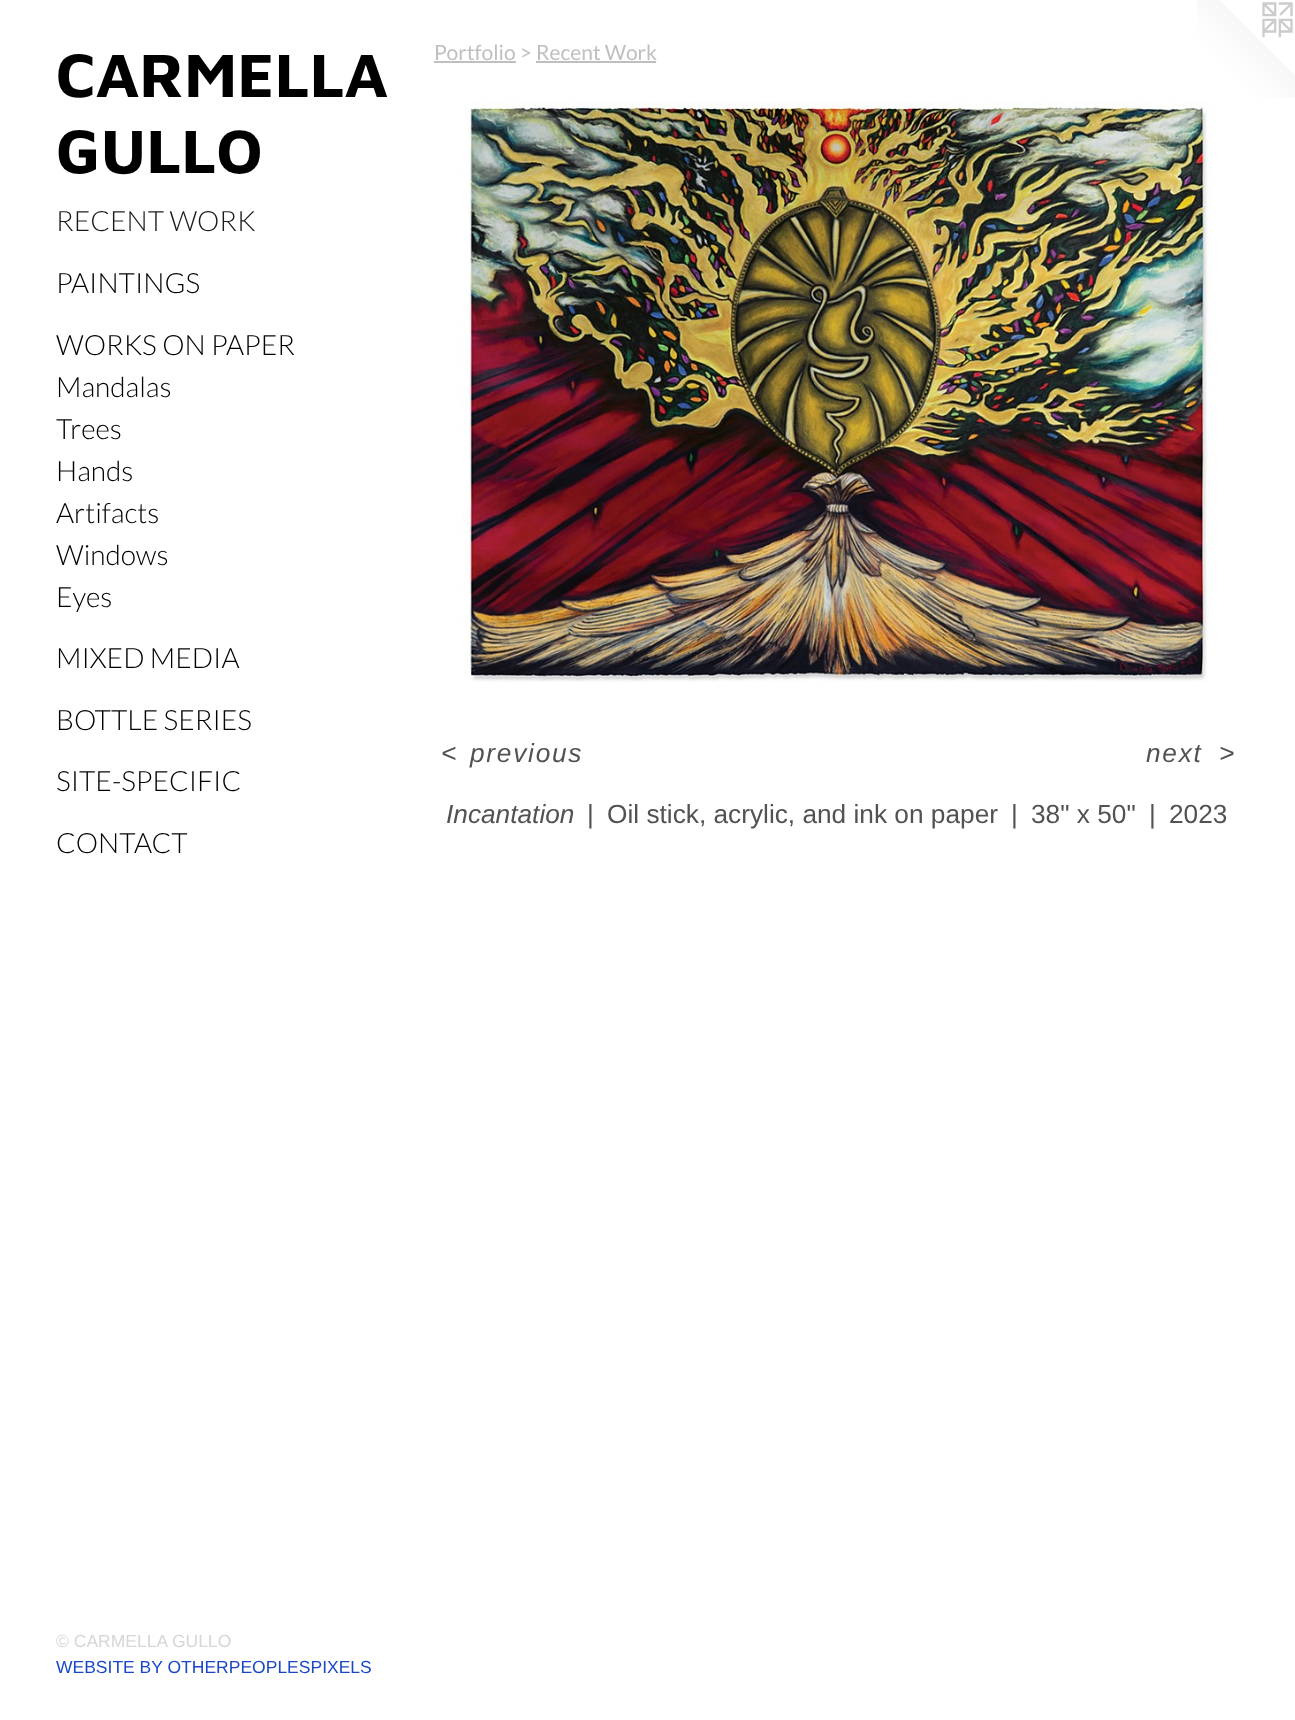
<svg xmlns="http://www.w3.org/2000/svg" width="1295" height="1720">
<style>
.a{font:bold 63px Maven Pro;fill:#000}
.b{font:300 28px Lato;fill:#1a1a1a}
.c{font:300 28px Lato;fill:#000}
.d{font:17.5px Liberation Sans;fill:#d6d6d6}
.e{font:17.5px Liberation Sans;fill:#1947c8}
.f{font:21px Lato;fill:#c0bfbf}
.g{font:italic 26.25px Liberation Sans;letter-spacing:1.75px;fill:#525252}
.h{font:italic 26.25px Liberation Sans;fill:#525252}
.i{font:26.25px Liberation Sans;fill:#525252}
</style>
<rect width="100%" height="100%" fill="#fff"/>
<path fill="#c0bfbf" d="M434 61h82v2H434z"/>
<path fill="#c0bfbf" d="M536 61h120v2H536z"/>
<image href="1.png" x="462" y="101" width="750" height="581"/>
<image href="2.png" x="1197" y="0" width="98" height="98"/>
<text class="a" x="56" y="97">CARMELLA</text>
<text class="a" x="56" y="173">GULLO</text>
<text class="b" x="56" y="231">RECENT WORK</text>
<text class="c" x="56" y="293">PAINTINGS</text>
<text class="c" x="56" y="355">WORKS ON PAPER</text>
<text class="c" x="56" y="397">Mandalas</text>
<text class="c" x="56" y="439">Trees</text>
<text class="c" x="56" y="481">Hands</text>
<text class="c" x="56" y="523">Artifacts</text>
<text class="c" x="56" y="565">Windows</text>
<text class="c" x="56" y="607">Eyes</text>
<text class="c" x="56" y="668">MIXED MEDIA</text>
<text class="c" x="56" y="730">BOTTLE SERIES</text>
<text class="c" x="56" y="791">SITE-SPECIFIC</text>
<text class="c" x="56" y="853">CONTACT</text>
<text class="d" x="56" y="1647">© CARMELLA GULLO</text>
<text class="e" x="56" y="1673">WEBSITE BY OTHERPEOPLESPIXELS</text>
<text class="f" x="434" y="60">Portfolio &gt; Recent Work</text>
<text class="g" x="441" y="762">&lt;</text>
<text class="g" x="470" y="762">previous</text>
<text class="g" x="1146" y="762">next</text>
<text class="g" x="1219" y="762">&gt;</text>
<text class="h" x="446" y="823">Incantation</text>
<text class="i" x="587" y="823">|</text>
<text class="i" x="607" y="823">Oil stick, acrylic, and ink on paper</text>
<text class="i" x="1011" y="823">|</text>
<text class="i" x="1031" y="823">38" x 50"</text>
<text class="i" x="1149" y="823">|</text>
<text class="i" x="1169" y="823">2023</text>
</svg>
